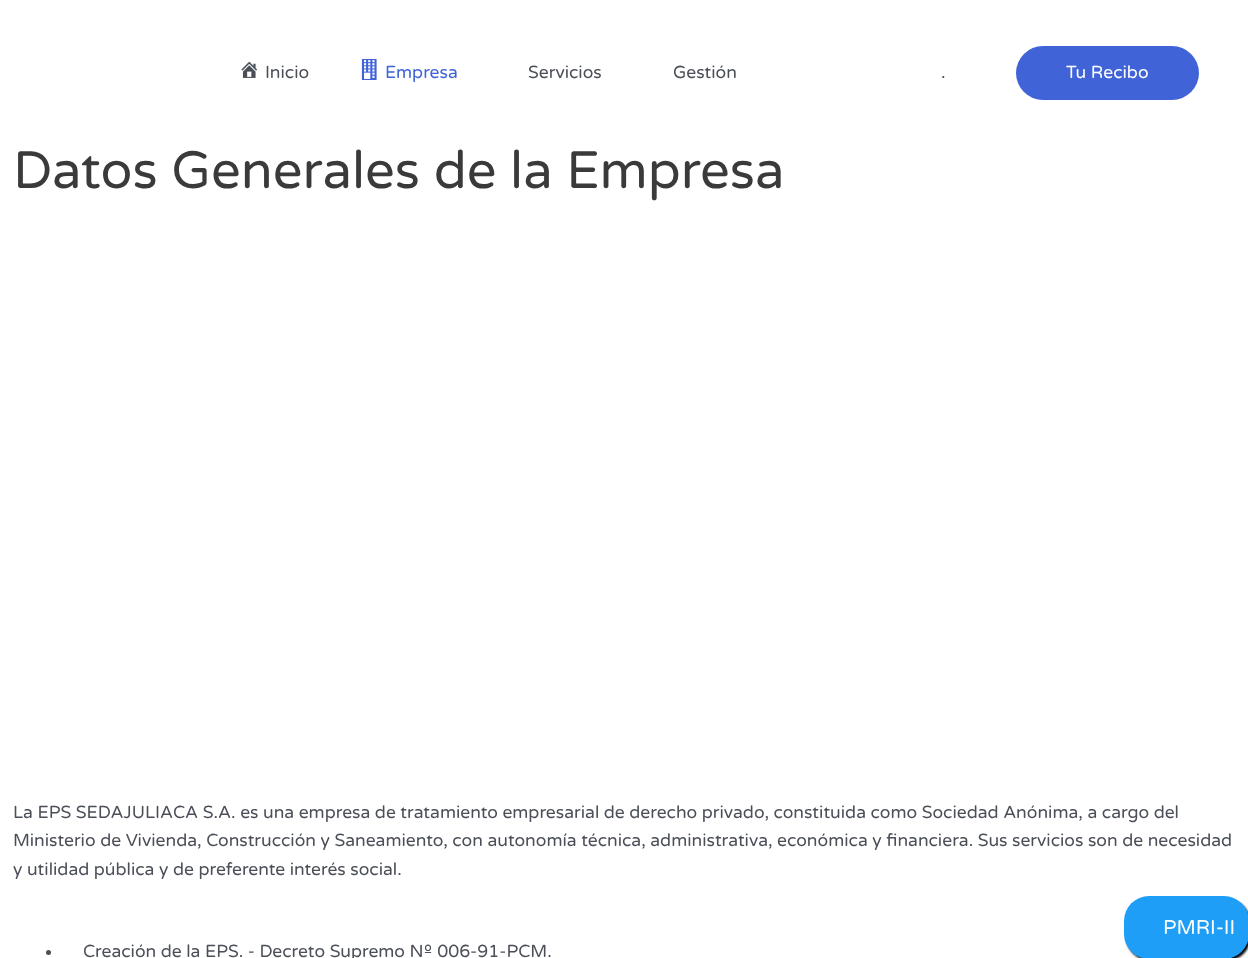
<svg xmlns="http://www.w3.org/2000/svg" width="1248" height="958">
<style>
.a{font:17.5px Varela Round;fill:#4b4f58}
.b{font:17.5px Varela Round;fill:#4064d7}
.c{font:17.5px Varela Round;fill:#fff}
.d{font:52.5px Varela Round;fill:#3a3a3a}
.e{font:20px Varela Round;fill:#fff}
</style>
<rect width="100%" height="100%" fill="#fff"/>
<image href="1.png" x="241" y="61" width="17" height="17"/>
<image href="2.png" x="361" y="59" width="16" height="21"/>
<rect fill="#4064d7" x="1016" y="46" width="183" height="54" rx="27"/>
<circle fill="#4b4f58" cx="48.5" cy="952.5" r="2.5"/>
<rect fill="#020202" filter="blur(1px)" x="1126" y="899" width="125" height="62" rx="25"/>
<rect fill="#1f9ef8" x="1124" y="896" width="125" height="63" rx="25"/>
<text class="a" x="265" y="78">Inicio</text>
<text class="b" x="385" y="78">Empresa</text>
<text class="a" x="528" y="78">Servicios</text>
<text class="a" x="673" y="78">Gestión</text>
<text class="a" x="941" y="78">.</text>
<text class="c" x="1066" y="78">Tu Recibo</text>
<text class="d" x="13" y="188">Datos Generales de la Empresa</text>
<text class="a" x="13" y="818">La EPS SEDAJULIACA S.A. es una empresa de tratamiento empresarial de derecho privado, constituida como Sociedad Anónima, a cargo del</text>
<text class="a" x="13" y="846">Ministerio de Vivienda, Construcción y Saneamiento, con autonomía técnica, administrativa, económica y financiera. Sus servicios son de necesidad</text>
<text class="a" x="13" y="875">y utilidad pública y de preferente interés social.</text>
<text class="a" x="83" y="957">Creación de la EPS. - Decreto Supremo Nº 006-91-PCM.</text>
<text class="e" x="1163" y="934">PMRI-II</text>
</svg>
